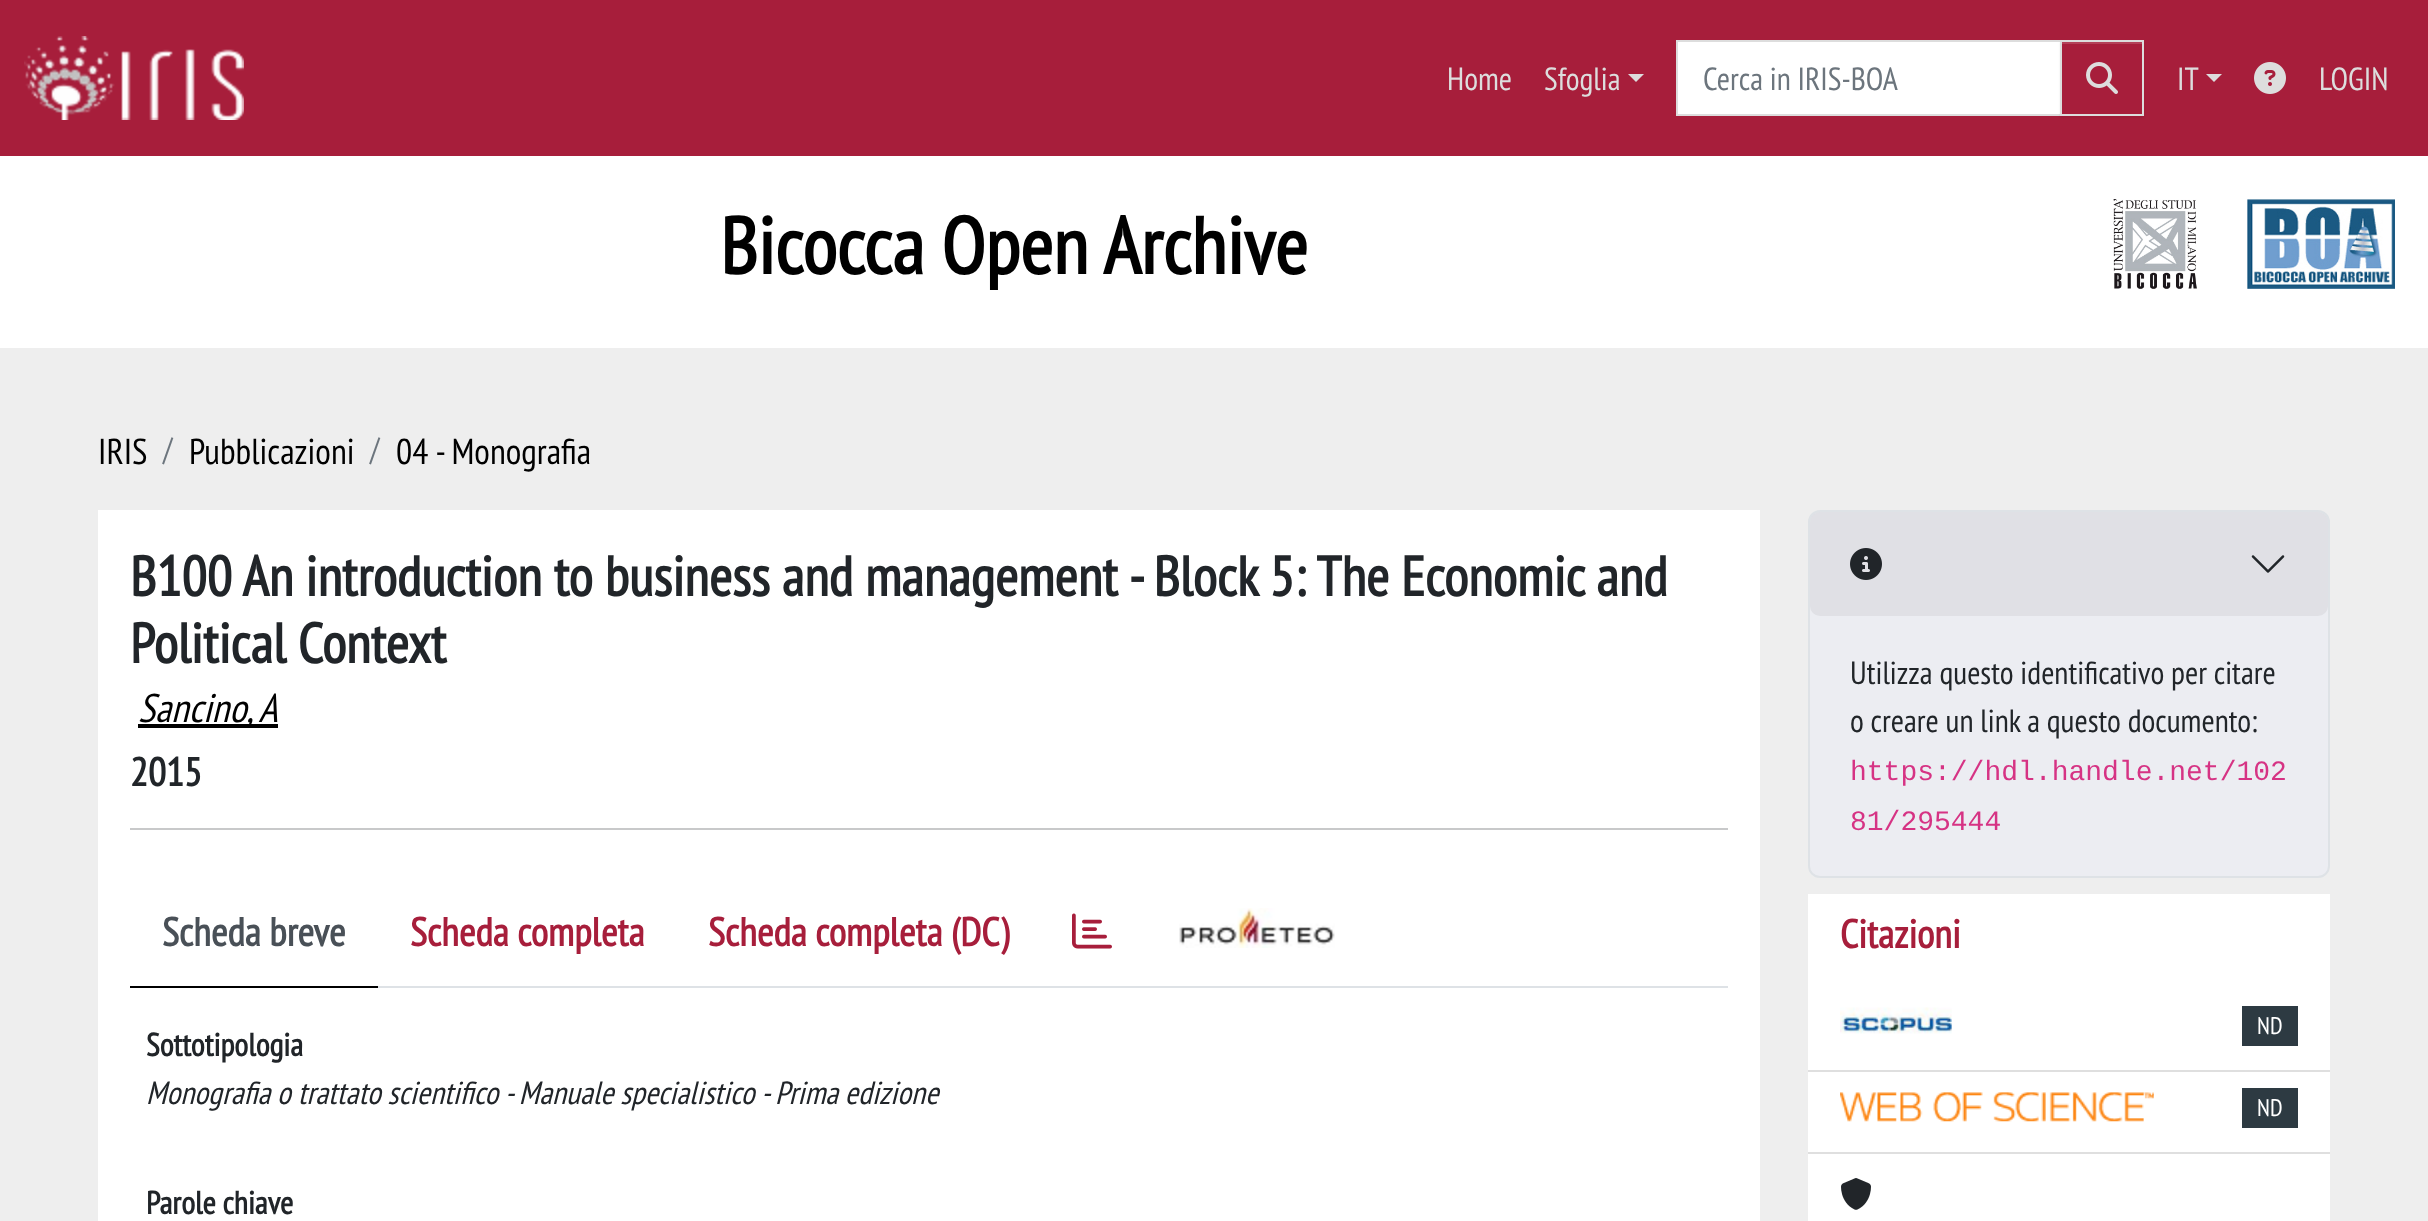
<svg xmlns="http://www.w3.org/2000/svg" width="2428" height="1221">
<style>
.a{font:32px PT Sans Narrow;fill:#ddd}
.b{font:32px PT Sans Narrow;fill:#6c757d}
.c{font:bold 80px PT Sans Narrow;fill:#000}
.d{font:36px PT Sans Narrow;fill:#000}
.e{font:bold 56px PT Sans Narrow;fill:#212529}
.f{font:italic 40px PT Sans Narrow;fill:#000}
.g{font:bold 40px PT Sans Narrow;fill:#212529}
.h{font:bold 40px PT Sans Narrow;fill:#495057}
.i{font:bold 40px PT Sans Narrow;fill:#a71e3b}
.j{font:bold 32px PT Sans Narrow;fill:#212529}
.k{font:italic 32px PT Sans Narrow;fill:#212529}
.l{font:32px PT Sans Narrow;fill:#212529}
.m{font:28px Liberation Mono;fill:#d63384}
.n{font:24px PT Sans Narrow;fill:#fff}
</style>
<rect width="100%" height="100%" fill="#eee"/>
<path fill="#a71e3b" d="M0 0h2428v156H0z"/>
<image href="1.png" x="24" y="36" width="220" height="84"/>
<path fill="#ddd" d="M1628 74h16l-8 8z"/>
<path fill="#fff" stroke="#ddd" stroke-width="2" d="M1677 41h384v74H1677z"/>
<path fill="#00000012" filter="blur(1px)" d="M2060 42h84v76H2060z"/>
<path fill="#a71e3b" d="M2062 44h80v70H2062z"/>
<path fill="#b44058" d="M2062 42h80v2H2062z"/>
<path fill="none" stroke="#ddd" stroke-width="2" d="M2061 41h82v74H2061z"/>
<image href="2.png" x="2086" y="62" width="32" height="32"/>
<path fill="#ddd" d="M2206 74h16l-8 8z"/>
<image href="3.png" x="2254" y="62" width="32" height="32"/>
<path fill="#fff" d="M0 156h2428v192H0z"/>
<image href="4.png" x="2113" y="199" width="282" height="90"/>
<path fill="#fff" d="M98 510h1662v711H98z"/>
<path fill="#000" d="M138 724h140v4H138z"/>
<path fill="#c8c9ca" d="M130 828h1598v2H130z"/>
<path fill="#dee2e6" d="M378 986h1350v2H378z"/>
<path fill="#000" d="M130 986h248v2H130z"/>
<image href="5.png" x="1072" y="913" width="40" height="36"/>
<image href="6.png" x="1179" y="908" width="156" height="40"/>
<rect fill="#ecedf2" stroke="#dee2e6" stroke-width="2" x="1809" y="511" width="520" height="366" rx="11"/>
<rect fill="#bbbdbe40" x="1810" y="512" width="518" height="104" rx="10"/>
<image href="7.png" x="1850" y="548" width="32" height="32"/>
<image href="8.png" x="2251" y="555" width="34" height="18"/>
<path fill="#fff" d="M1808 894h522v327H1808z"/>
<path fill="#dfdfdf" d="M1808 1070h522v2H1808z"/>
<image href="9.png" x="1840" y="1007" width="112" height="27"/>
<path fill="#2d3a42" d="M2242 1006h56v40H2242z"/>
<path fill="#dfdfdf" d="M1808 1152h522v2H1808z"/>
<image href="10.png" x="1840" y="1092" width="314" height="30"/>
<path fill="#2d3a42" d="M2242 1088h56v40H2242z"/>
<image href="11.png" x="1841" y="1178" width="30" height="32"/>
<text class="a" x="1447" y="90">Home</text>
<text class="a" x="1544" y="90">Sfoglia</text>
<text class="b" x="1703" y="90">Cerca in IRIS-BOA</text>
<text class="a" x="2177" y="90">IT</text>
<text class="a" x="2319" y="90">LOGIN</text>
<text class="c" x="720" y="274">Bicocca Open Archive</text>
<text class="d" x="98" y="464">IRIS</text>
<text class="b" x="163" y="460">/</text>
<text class="d" x="189" y="464">Pubblicazioni</text>
<text class="b" x="370" y="460">/</text>
<text class="d" x="396" y="464">04 - Monografia</text>
<text class="e" x="130" y="596">B100 An introduction to business and management - Block 5: The Economic and</text>
<text class="e" x="130" y="663">Political Context</text>
<text class="f" x="138" y="722">Sancino, A</text>
<text class="g" x="130" y="786">2015</text>
<text class="h" x="162" y="946">Scheda breve</text>
<text class="i" x="410" y="946">Scheda completa</text>
<text class="i" x="708" y="946">Scheda completa (DC)</text>
<text class="j" x="146" y="1056">Sottotipologia</text>
<text class="k" x="146" y="1104">Monografia o trattato scientifico - Manuale specialistico - Prima edizione</text>
<text class="j" x="146" y="1214">Parole chiave</text>
<text class="l" x="1850" y="684">Utilizza questo identificativo per citare</text>
<text class="l" x="1850" y="732">o creare un link a questo documento:</text>
<text class="m" x="1850" y="780">https://hdl.handle.net/102</text>
<text class="m" x="1850" y="830">81/295444</text>
<text class="i" x="1840" y="948">Citazioni</text>
<text class="n" x="2257" y="1034">ND</text>
<text class="n" x="2257" y="1116">ND</text>
</svg>
